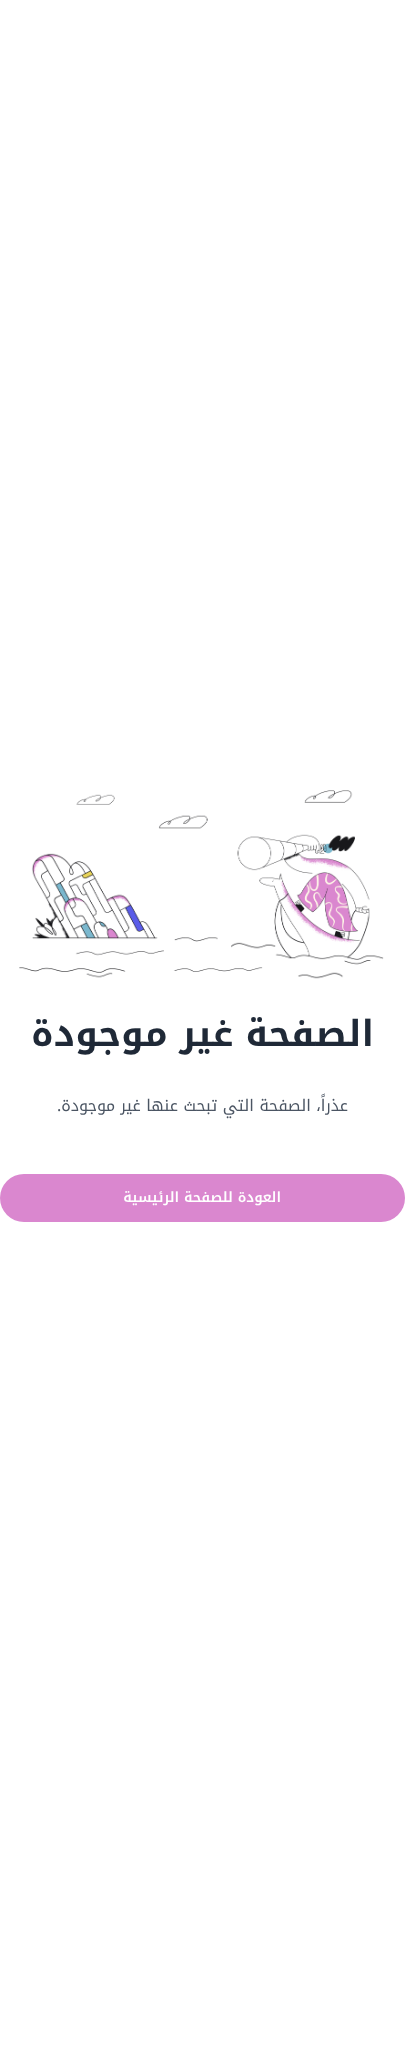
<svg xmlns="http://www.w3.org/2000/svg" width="405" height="2049">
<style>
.a{font:bold 36px Noto Kufi Arabic;direction:rtl;fill:#1f2937}
.b{font:16px Noto Kufi Arabic;direction:rtl;fill:#4b5563}
.c{font:600 14px Noto Kufi Arabic;direction:rtl;fill:#fff}
</style>
<rect width="100%" height="100%" fill="#fff"/>
<image href="1.png" x="19" y="790" width="365" height="189"/>
<rect fill="#da87cf" y="1174" width="405" height="48" rx="24"/>
<text class="a" x="374" y="1046">الصفحة غير موجودة</text>
<text class="b" x="348" y="1111">عذراً، الصفحة التي تبحث عنها غير موجودة.</text>
<text class="c" x="281" y="1202">العودة للصفحة الرئيسية</text>
</svg>
